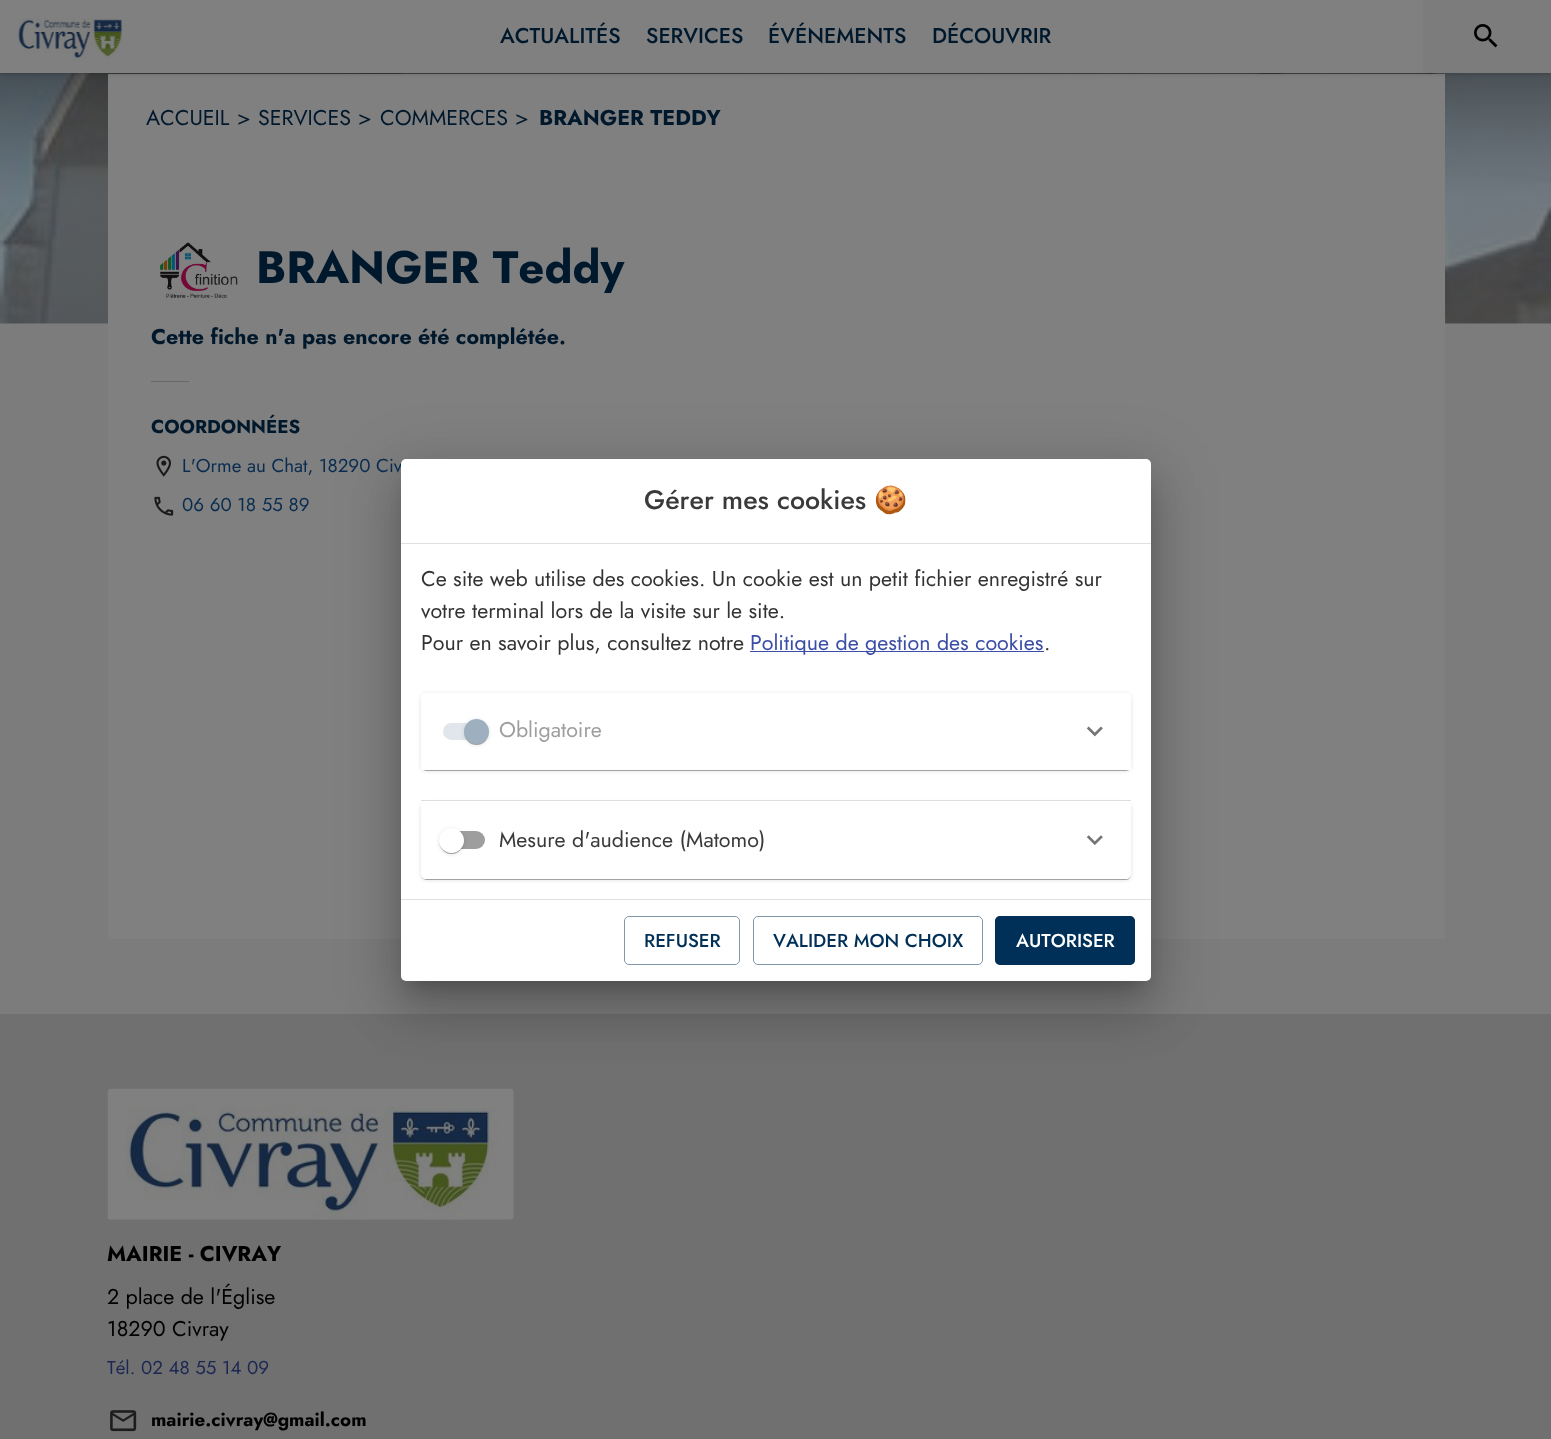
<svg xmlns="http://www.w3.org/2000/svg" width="1551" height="1439">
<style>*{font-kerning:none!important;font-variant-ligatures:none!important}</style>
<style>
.a{font:500 21.4px Jost;fill:#00182c}
.b{font:21.4px Jost;fill:#00182c}
.c{font:bold 21.4px Jost;fill:#00182c}
.d{font:bold 45.5px Jost;fill:#00182c}
.e{font:bold 18.75px Jost;fill:#00182c}
.f{font:18.75px Jost;fill:#082c4f}
.g{font:bold 21.4px Jost;fill:#000}
.h{font:21.4px Jost;fill:#000}
.i{font:18.75px Jost;fill:#1d2754}
.j{font:bold 18.75px Jost;fill:#000}
.k{font:500 26.75px Jost;fill:#3a3a3a}
.l{font:26.75px Noto Color Emoji;fill:#3a3a3a}
.m{font:21.4px Jost;fill:#333}
.n{font:21.4px Jost;fill:#3a4da7}
.o{font:21.4px Jost;fill:#9e9e9e}
.p{font:21.4px Jost;fill:#3a3a3a}
.q{font:500 18.75px Jost;fill:#003057}
.r{font:500 18.75px Jost;fill:#fff}
</style>
<defs>
<linearGradient id="g1" gradientUnits="userSpaceOnUse" x1="776" y1="-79" x2="776" y2="324"><stop offset="0" stop-color="#000"/><stop offset="0.69" stop-color="#808080" stop-opacity="0.5"/></linearGradient>
<clipPath id="clip1"><path d="M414 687h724v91h-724zm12 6h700c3 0 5 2 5 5v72h-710v-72c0-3 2-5 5-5z" clip-rule="evenodd"/></clipPath>
<clipPath id="clip2"><path d="M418 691h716v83h-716zm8 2h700c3 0 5 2 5 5v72h-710v-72c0-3 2-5 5-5z" clip-rule="evenodd"/></clipPath>
<clipPath id="clip3"><path d="M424 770h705v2H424z"/></clipPath>
<clipPath id="clip4"><path d="M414 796h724v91h-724zm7 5h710v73c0 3-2 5-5 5h-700c-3 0-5-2-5-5z" clip-rule="evenodd"/></clipPath>
<clipPath id="clip5"><path d="M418 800h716v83h-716zm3 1h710v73c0 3-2 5-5 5h-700c-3 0-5-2-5-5z" clip-rule="evenodd"/></clipPath>
<clipPath id="clip6"><path d="M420 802h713v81h-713zm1-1h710v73c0 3-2 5-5 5h-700c-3 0-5-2-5-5z" clip-rule="evenodd"/></clipPath>
</defs>
<rect width="100%" height="100%" fill="#7c7c7c"/>
<image href="3.png" x="0" y="73" width="1551" height="251"/>
<path fill="url(#g1)" d="M0 73h1551v251H0z"/>
<path fill="#808080" d="M108 74h1337v865H108z"/>
<path fill="#00000040" filter="blur(2.5px)" d="M0 0h1551v73H0z"/>
<path fill="#808080" d="M0 0h1423v73H0z"/>
<image href="1.png" x="18" y="18" width="105" height="42"/>
<path fill="#7c7c7c" d="M1423 0h128v73H1423z"/>
<image href="2.png" x="1474" y="24" width="24" height="24"/>
<image href="4.png" x="160" y="242" width="78" height="56"/>
<path fill="#686868" d="M151 381h38v1H151z"/>
<image href="5.png" x="156" y="455" width="15" height="22"/>
<image href="6.png" x="154" y="496" width="20" height="20"/>
<path fill="#707070" d="M0 1014h1551v425H0z"/>
<image href="7.png" x="107" y="1088" width="407" height="132"/>
<image href="8.png" x="110" y="1410" width="27" height="22"/>
<rect fill="#0000001f" filter="blur(29px)" x="391" y="460" width="770" height="543" rx="15"/>
<rect fill="#00000024" filter="blur(24px)" x="398" y="485" width="757" height="530" rx="9"/>
<path fill="#00000033" filter="blur(9.5px)" d="M410 481h733v505H410z"/>
<text class="a" x="500" y="43">ACTUALITÉS</text>
<text class="a" x="646" y="43">SERVICES</text>
<text class="a" x="768" y="43">ÉVÉNEMENTS</text>
<text class="a" x="932" y="43">DÉCOUVRIR</text>
<text class="b" x="146" y="125">ACCUEIL</text>
<text class="b" x="237" y="125">&gt;</text>
<text class="b" x="258" y="125">SERVICES</text>
<text class="b" x="358" y="125">&gt;</text>
<text class="b" x="380" y="125">COMMERCES</text>
<text class="b" x="515" y="125">&gt;</text>
<text class="c" x="539" y="125">BRANGER TEDDY</text>
<text class="d" x="256" y="283">BRANGER Teddy</text>
<text class="c" x="151" y="344">Cette fiche n'a pas encore été complétée.</text>
<text class="e" x="151" y="433">COORDONNÉES</text>
<text class="f" x="182" y="472">L'Orme au Chat, 18290 Civ</text>
<text class="f" x="182" y="511">06 60 18 55 89</text>
<text class="g" x="107" y="1261">MAIRIE - CIVRAY</text>
<text class="h" x="107" y="1304">2 place de l'Église</text>
<text class="h" x="107" y="1336">18290 Civray</text>
<text class="i" x="107" y="1374">Tél. 02 48 55 14 09</text>
<text class="j" x="151" y="1426">mairie.civray@gmail.com</text>
<rect fill="#fff" x="401" y="459" width="750" height="522" rx="5"/>
<text class="k" x="644" y="509">Gérer mes cookies</text>
<text class="l" x="874" y="509">🍪</text>
<path fill="#e0e0e0" d="M401 543h750v1H401z"/>
<path fill="#e0e0e0" d="M401 899h750v1H401z"/>
<text class="m" x="421" y="586">Ce site web utilise des cookies. Un cookie est un petit fichier enregistré sur</text>
<text class="m" x="421" y="618">votre terminal lors de la visite sur le site.</text>
<text class="m" x="421" y="650">Pour en savoir plus, consultez notre</text>
<path fill="#3a4da7" d="M750 651h294v1H750z"/>
<text class="n" x="750" y="650">Politique de gestion des cookies</text>
<text class="m" x="1044" y="650">.</text>
<g clip-path="url(#clip1)">
<rect fill="#0000001f" filter="blur(2px)" x="421" y="694" width="710" height="77" rx="5"/>
</g>
<g clip-path="url(#clip2)">
<rect fill="#00000024" filter="blur(0.5px)" x="421" y="694" width="710" height="77" rx="5"/>
</g>
<g clip-path="url(#clip3)">
<rect fill="#00000033" filter="blur(0.5px)" x="423" y="696" width="707" height="75" rx="4"/>
</g>
<rect fill="#e0e6eb" x="443" y="723" width="42" height="17" rx="8.5"/>
<rect fill="#00000033" filter="blur(0.5px)" x="465" y="723" width="23" height="22" rx="11"/>
<rect fill="#00000024" filter="blur(0.5px)" x="464" y="720" width="25" height="25" rx="12.5"/>
<rect fill="#0000001f" filter="blur(2px)" x="464" y="720" width="25" height="25" rx="12.5"/>
<circle fill="#9eb0bf" cx="476.5" cy="731.5" r="12.5"/>
<text class="o" x="499" y="737">Obligatoire</text>
<image href="9.png" x="1086" y="726" width="17" height="11"/>
<g clip-path="url(#clip4)">
<rect fill="#0000001f" filter="blur(2px)" x="421" y="803" width="710" height="77" rx="5"/>
</g>
<g clip-path="url(#clip5)">
<rect fill="#00000024" filter="blur(0.5px)" x="421" y="803" width="710" height="77" rx="5"/>
</g>
<g clip-path="url(#clip6)">
<rect fill="#00000033" filter="blur(0.5px)" x="423" y="805" width="707" height="75" rx="4"/>
</g>
<path fill="#dedede" d="M421 800h710v1H421z"/>
<rect fill="#9e9e9e" x="443" y="831" width="42" height="18" rx="9"/>
<rect fill="#00000033" filter="blur(0.5px)" x="440" y="831" width="23" height="23" rx="11.5"/>
<rect fill="#00000024" filter="blur(0.5px)" x="439" y="829" width="25" height="25" rx="12.5"/>
<rect fill="#0000001f" filter="blur(2px)" x="439" y="829" width="25" height="25" rx="12.5"/>
<circle fill="#fff" cx="451.5" cy="840.5" r="12.5"/>
<text class="p" x="499" y="847">Mesure d'audience (Matomo)</text>
<image href="10.png" x="1086" y="835" width="17" height="10"/>
<rect fill="none" stroke="#8098ab" x="624.5" y="916.5" width="115" height="48" rx="4.5"/>
<text class="q" x="644" y="947">REFUSER</text>
<rect fill="none" stroke="#8098ab" x="753.5" y="916.5" width="229" height="48" rx="4.5"/>
<text class="q" x="773" y="947">VALIDER MON CHOIX</text>
<rect fill="#003057" x="995" y="916" width="140" height="49" rx="5"/>
<rect fill="none" stroke="#00305780" x="995.5" y="916.5" width="139" height="48" rx="4.5"/>
<text class="r" x="1016" y="947">AUTORISER</text>
</svg>
